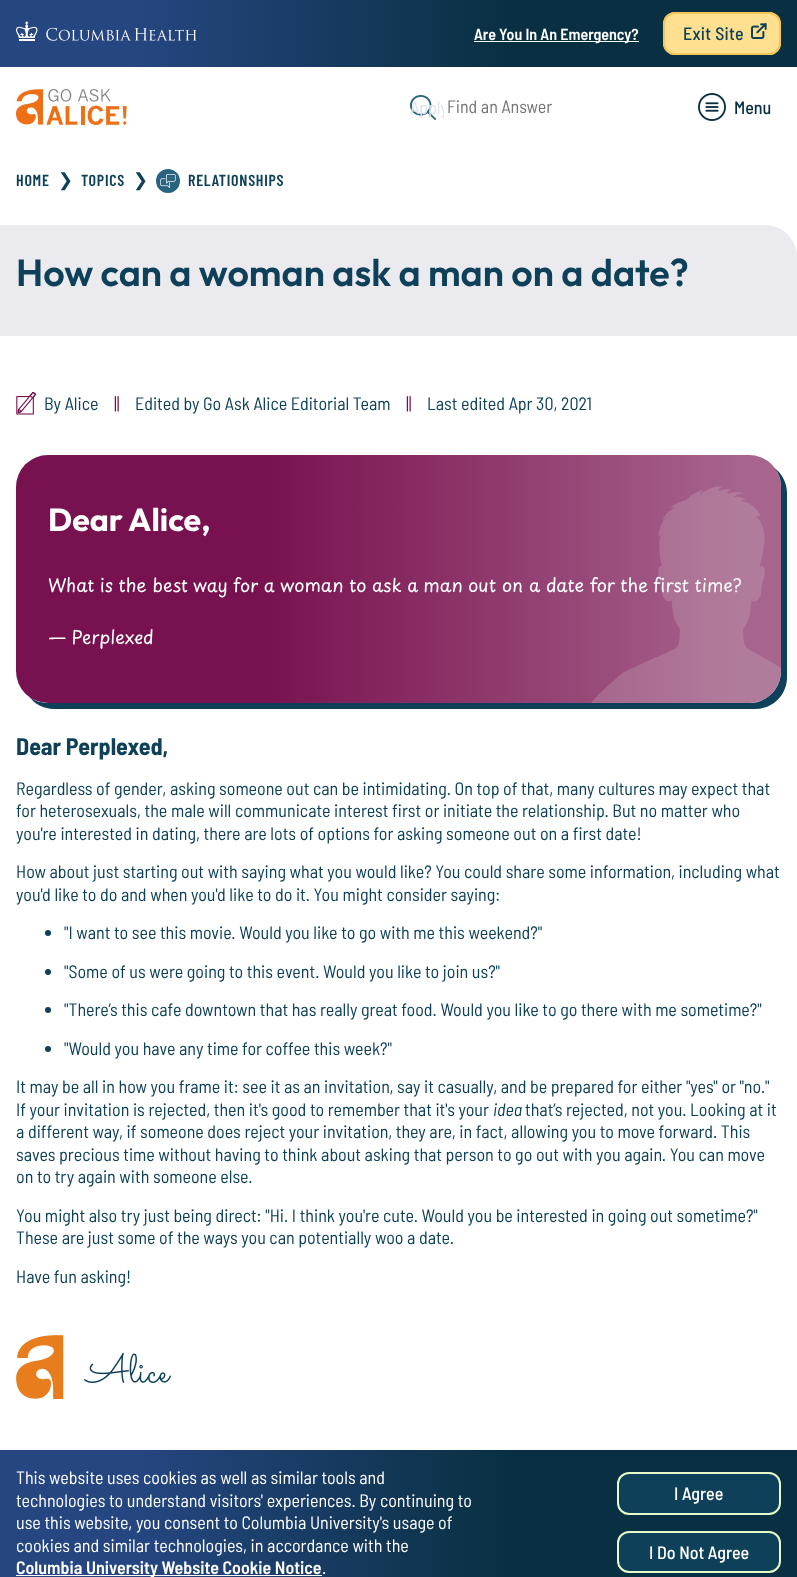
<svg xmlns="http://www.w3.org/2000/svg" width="797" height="1577">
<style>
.a{font:600 16px Barlow Semi Condensed;fill:#fff}
.b{font:500 18px Barlow Semi Condensed;letter-spacing:0.25px;fill:#0e4159}
.c{font:18px Barlow Semi Condensed;fill:#dbe5ea}
.d{font:18px Barlow Semi Condensed;fill:#757575}
.e{font:500 18px Barlow Semi Condensed;fill:#093042}
.f{font:600 16px Barlow Condensed;letter-spacing:0.75px;fill:#0e4159}
.g{font:18px DejaVu Sans;fill:#0e4159}
.h{font:600 37.7px Outfit;fill:#0e4159}
.i{font:18px Barlow Semi Condensed;fill:#0e4159}
.j{font:18px Barlow Semi Condensed;fill:#78114f}
.k{font:bold 32px Outfit;fill:#fff}
.l{font:18px Playpen Sans;fill:#fff}
.m{font:bold 24px Barlow Semi Condensed;fill:#0e4159}
.n{font:italic 18px Barlow Semi Condensed;fill:#0e4159}
.o{font:18px Barlow Semi Condensed;fill:#fff}
.p{font:600 18px Barlow Semi Condensed;fill:#fff}
.q{font:500 18px Barlow Semi Condensed;fill:#fff}
</style>
<defs>
<linearGradient id="g1" gradientUnits="userSpaceOnUse" x1="0" y1="34" x2="797" y2="33"><stop offset="0.17" stop-color="#254681"/><stop offset="0.64" stop-color="#093042"/></linearGradient>
<linearGradient id="g2" gradientUnits="userSpaceOnUse" x1="16" y1="579" x2="781" y2="579"><stop offset="0.32" stop-color="#78114f"/><stop offset="0.95" stop-color="#78114f" stop-opacity="0.65"/></linearGradient>
<linearGradient id="g3" gradientUnits="userSpaceOnUse" x1="0" y1="1523" x2="797" y2="1523"><stop offset="0.17" stop-color="#254681"/><stop offset="0.64" stop-color="#093042"/></linearGradient>
<clipPath id="clip1"><path d="M404 92h40v30H404z"/></clipPath>
</defs>
<rect width="100%" height="100%" fill="#fff"/>
<path fill="url(#g1)" d="M0 0h797v67H0z"/>
<image href="1.png" x="16" y="21" width="181" height="20"/>
<path fill="#fff" d="M474 41h165v1H474z"/>
<rect fill="#ffe090" x="663" y="12" width="118" height="43" rx="12"/>
<image href="2.png" x="751" y="23" width="16" height="16"/>
<rect fill="none" stroke="#f7c559" stroke-width="2" x="664" y="13" width="116" height="41" rx="11"/>
<image href="3.png" x="16" y="89" width="111" height="36"/>
<image href="4.png" x="410" y="95" width="26" height="25"/>
<image href="5.png" x="698" y="93" width="28" height="28"/>
<circle fill="#296380" cx="168" cy="181" r="12"/>
<image href="6.png" x="160" y="174" width="16" height="14"/>
<path fill="#eaeaef" d="M0 225h765c17.5 0 32 14.5 32 32v79h-797z"/>
<image href="7.png" x="16" y="392" width="21" height="23"/>
<path fill="#0e4159" d="M29 696c5 8 15 13 25 13h701c18 0 32-14 32-32v-184c0-10-5-20-13-25c5 5 7 12 7 19v184c0 18-14 32-32 32h-701c-7 0-14-2-19-7z"/>
<rect fill="url(#g2)" x="16" y="455" width="765" height="248" rx="32"/>
<circle fill="#0e4159" cx="48" cy="933" r="3"/>
<circle fill="#0e4159" cx="48" cy="972" r="3"/>
<circle fill="#0e4159" cx="48" cy="1010" r="3"/>
<circle fill="#0e4159" cx="48" cy="1049" r="3"/>
<image href="9.png" x="16" y="1335" width="48" height="64"/>
<image href="10.png" x="84" y="1352" width="88" height="31"/>
<path fill="url(#g3)" d="M0 1450h797v127H0z"/>
<path fill="#fff" d="M16 1575h306v1H16z"/>
<rect fill="#0e4159" stroke="#e6fbca" stroke-width="2" x="618" y="1473" width="162" height="41" rx="11"/>
<rect fill="#0e4159" stroke="#e6fbca" stroke-width="2" x="618" y="1532" width="162" height="40" rx="11"/>
<text class="a" x="474" y="40">Are You In An Emergency?</text>
<text class="b" x="683" y="40">Exit Site</text>
<g clip-path="url(#clip1)">
<text class="c" x="410" y="114">Apply</text>
</g>
<text class="d" x="447" y="113">Find an Answer</text>
<text class="e" x="734" y="114">Menu</text>
<text class="f" x="16" y="186">HOME</text>
<text class="g" x="58" y="186">❯</text>
<text class="f" x="81" y="186">TOPICS</text>
<text class="g" x="133" y="186">❯</text>
<text class="f" x="188" y="186">RELATIONSHIPS</text>
<text class="h" x="16" y="286">How can a woman ask a man on a date?</text>
<text class="i" x="44" y="410">By Alice</text>
<text class="j" x="114" y="410">||</text>
<text class="i" x="135" y="410">Edited by Go Ask Alice Editorial Team</text>
<text class="j" x="406" y="410">||</text>
<text class="i" x="427" y="410">Last edited Apr 30, 2021</text>
<text class="k" x="48" y="531">Dear Alice,</text>
<text class="l" x="48" y="592">What is the best way for a woman to ask a man out on a date for the first time?</text>
<image href="8.png" x="591" y="486" width="190" height="217"/>
<text class="l" x="48" y="644">— Perplexed</text>
<text class="m" x="16" y="755">Dear Perplexed,</text>
<text class="i" x="16" y="795">Regardless of gender, asking someone out can be intimidating. On top of that, many cultures may expect that</text>
<text class="i" x="16" y="817">for heterosexuals, the male will communicate interest first or initiate the relationship. But no matter who</text>
<text class="i" x="16" y="840">you're interested in dating, there are lots of options for asking someone out on a first date!</text>
<text class="i" x="16" y="878">How about just starting out with saying what you would like? You could share some information, including what</text>
<text class="i" x="16" y="901">you'd like to do and when you'd like to do it. You might consider saying:</text>
<text class="i" x="64" y="939">"I want to see this movie. Would you like to go with me this weekend?"</text>
<text class="i" x="64" y="978">"Some of us were going to this event. Would you like to join us?"</text>
<text class="i" x="64" y="1016">"There’s this cafe downtown that has really great food. Would you like to go there with me sometime?"</text>
<text class="i" x="64" y="1055">"Would you have any time for coffee this week?"</text>
<text class="i" x="16" y="1093">It may be all in how you frame it: see it as an invitation, say it casually, and be prepared for either "yes" or "no."</text>
<text class="i" x="16" y="1116">If your invitation is rejected, then it's good to remember that it's your</text>
<text class="n" x="493" y="1116">idea</text>
<text class="i" x="525" y="1116">that’s rejected, not you. Looking at it</text>
<text class="i" x="16" y="1138">a different way, if someone does reject your invitation, they are, in fact, allowing you to move forward. This</text>
<text class="i" x="16" y="1161">saves precious time without having to think about asking that person to go out with you again. You can move</text>
<text class="i" x="16" y="1183">on to try again with someone else.</text>
<text class="i" x="16" y="1222">You might also try just being direct: "Hi. I think you're cute. Would you be interested in going out sometime?"</text>
<text class="i" x="16" y="1244">These are just some of the ways you can potentially woo a date.</text>
<text class="i" x="16" y="1283">Have fun asking!</text>
<text class="o" x="16" y="1484">This website uses cookies as well as similar tools and</text>
<text class="o" x="16" y="1507">technologies to understand visitors' experiences. By continuing to</text>
<text class="o" x="16" y="1529">use this website, you consent to Columbia University's usage of</text>
<text class="o" x="16" y="1552">cookies and similar technologies, in accordance with the</text>
<text class="p" x="16" y="1574">Columbia University Website Cookie Notice</text>
<text class="o" x="322" y="1574">.</text>
<text class="q" x="674" y="1500">I Agree</text>
<text class="q" x="649" y="1559">I Do Not Agree</text>
</svg>
